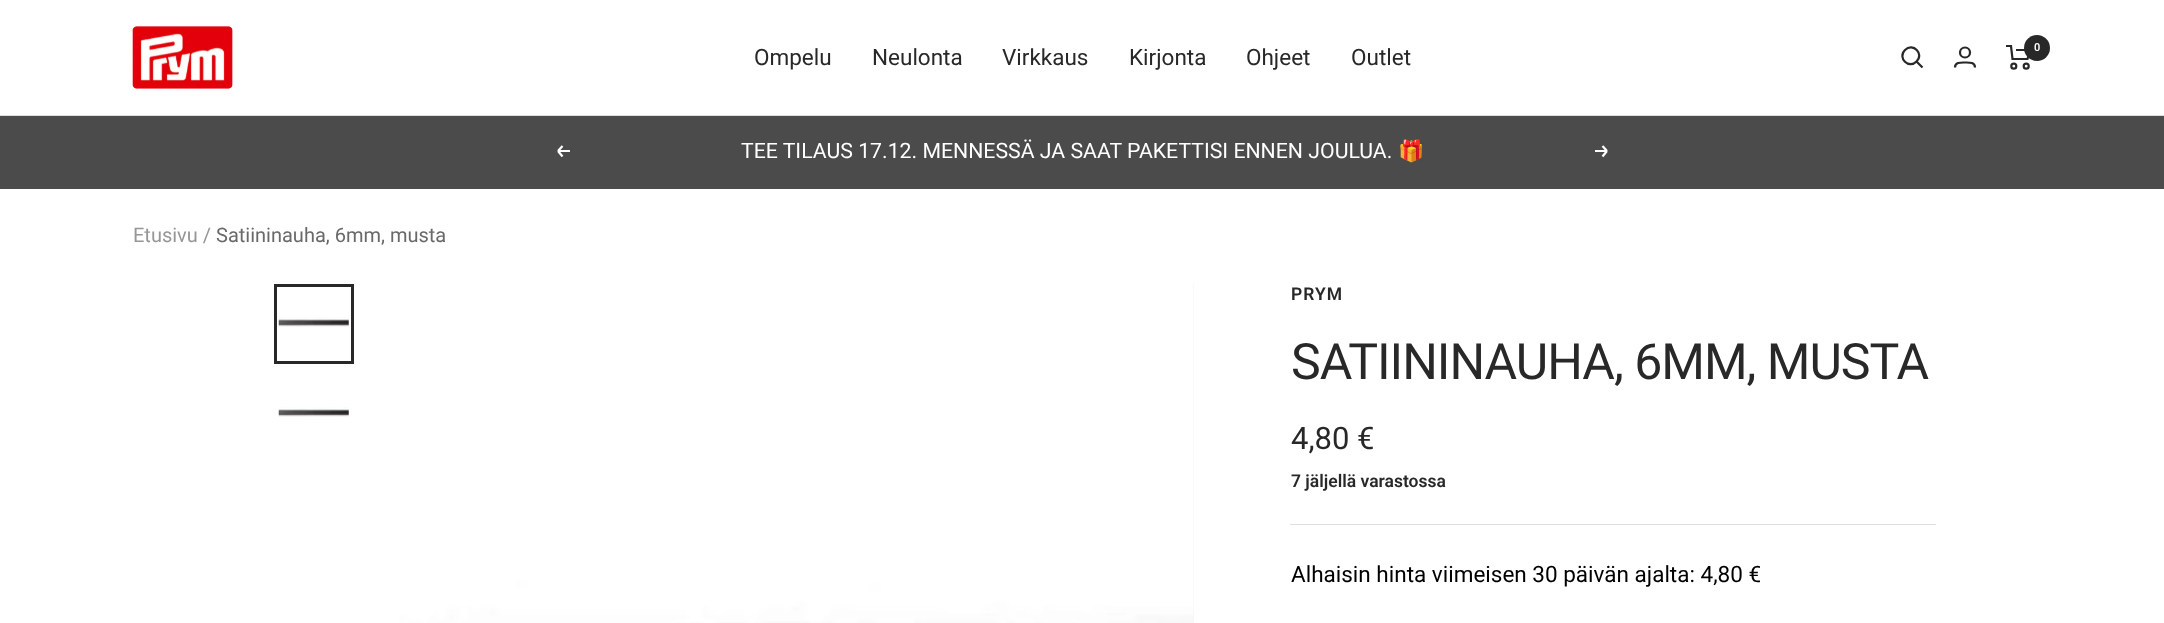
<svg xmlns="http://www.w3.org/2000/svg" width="2164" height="623">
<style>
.a{font:600 11px Roboto;fill:#fff}
.b{font:22.5px Roboto;fill:#282828}
.c{font:21.25px Roboto;fill:#fff}
.d{font:21.25px Noto Color Emoji;fill:#fff}
.e{font:20px Roboto;fill:#969696}
.f{font:20px Roboto;fill:#696969}
.g{font:600 17.5px Roboto;letter-spacing:1px;fill:#282828}
.h{font:50px Roboto;letter-spacing:-1px;fill:#282828}
.i{font:31px Roboto;fill:#282828}
.j{font:600 17.5px Roboto;fill:#282828}
.k{font:22.5px Roboto;fill:#000}
</style>
<rect width="100%" height="100%" fill="#fff"/>
<path fill="#dfdfdf" d="M0 115h2164v1H0z"/>
<image href="1.png" x="132" y="26" width="101" height="63"/>
<path fill="none" stroke="#282828" stroke-width="2.2" d="M1916.5 61.5c8-7.5-3.5-19.5-11.5-11.5c-8 8 4 19.5 11.5 11.5zm0 0l6 6"/>
<circle fill="none" stroke="#282828" stroke-width="2.2" cx="1965" cy="52.5" r="5"/>
<path fill="none" stroke="#282828" stroke-width="2.2" d="M1955 67.5c0-5.5 6-5 10-5c4 0 10-.5 10 5"/>
<path fill="none" stroke="#282828" stroke-width="2.2" d="M2006 46h5l1.5 13h15l2.5-9h-14"/>
<circle fill="none" stroke="#282828" stroke-width="2.2" cx="2013.8" cy="66.2" r="2.5"/>
<circle fill="none" stroke="#282828" stroke-width="2.2" cx="2026.2" cy="66.2" r="2.5"/>
<circle fill="#282828" cx="2037" cy="48" r="13"/>
<path fill="#4b4b4b" d="M0 116h2164v73H0z"/>
<path fill="none" stroke="#fff" stroke-width="2.2" d="M570 151h-12m0 0l4.5 5.5m-4.5-5.5l4.5-5"/>
<path fill="none" stroke="#fff" stroke-width="2.2" d="M1595 151h12m0 0l-4.5 5.5m4.5-5.5l-4.5-5"/>
<image href="2.png" x="278" y="317" width="71" height="10"/>
<path fill="none" stroke="#282828" stroke-width="3" d="M275.5 285.5h77v77H275.5z"/>
<image href="3.png" x="278" y="407" width="71" height="10"/>
<path fill="#f5f5f5" d="M1193 284h1v339H1193z"/>
<image href="4.png" x="399" y="284" width="795" height="339"/>
<path fill="#dfdfdf" d="M1290 524h646v1H1290z"/>
<text class="a" x="2034" y="51">0</text>
<text class="b" x="754" y="65">Ompelu</text>
<text class="b" x="872" y="65">Neulonta</text>
<text class="b" x="1002" y="65">Virkkaus</text>
<text class="b" x="1129" y="65">Kirjonta</text>
<text class="b" x="1246" y="65">Ohjeet</text>
<text class="b" x="1351" y="65">Outlet</text>
<text class="c" x="741" y="158">TEE TILAUS 17.12. MENNESSÄ JA SAAT PAKETTISI ENNEN JOULUA.</text>
<text class="d" x="1398" y="158">🎁</text>
<text class="e" x="133" y="242">Etusivu /</text>
<text class="f" x="216" y="242">Satiininauha, 6mm, musta</text>
<text class="g" x="1291" y="300">PRYM</text>
<text class="h" x="1291" y="379">SATIININAUHA, 6MM, MUSTA</text>
<text class="i" x="1291" y="449">4,80 €</text>
<text class="j" x="1291" y="487">7 jäljellä varastossa</text>
<text class="k" x="1291" y="582">Alhaisin hinta viimeisen 30 päivän ajalta: 4,80 €</text>
</svg>
